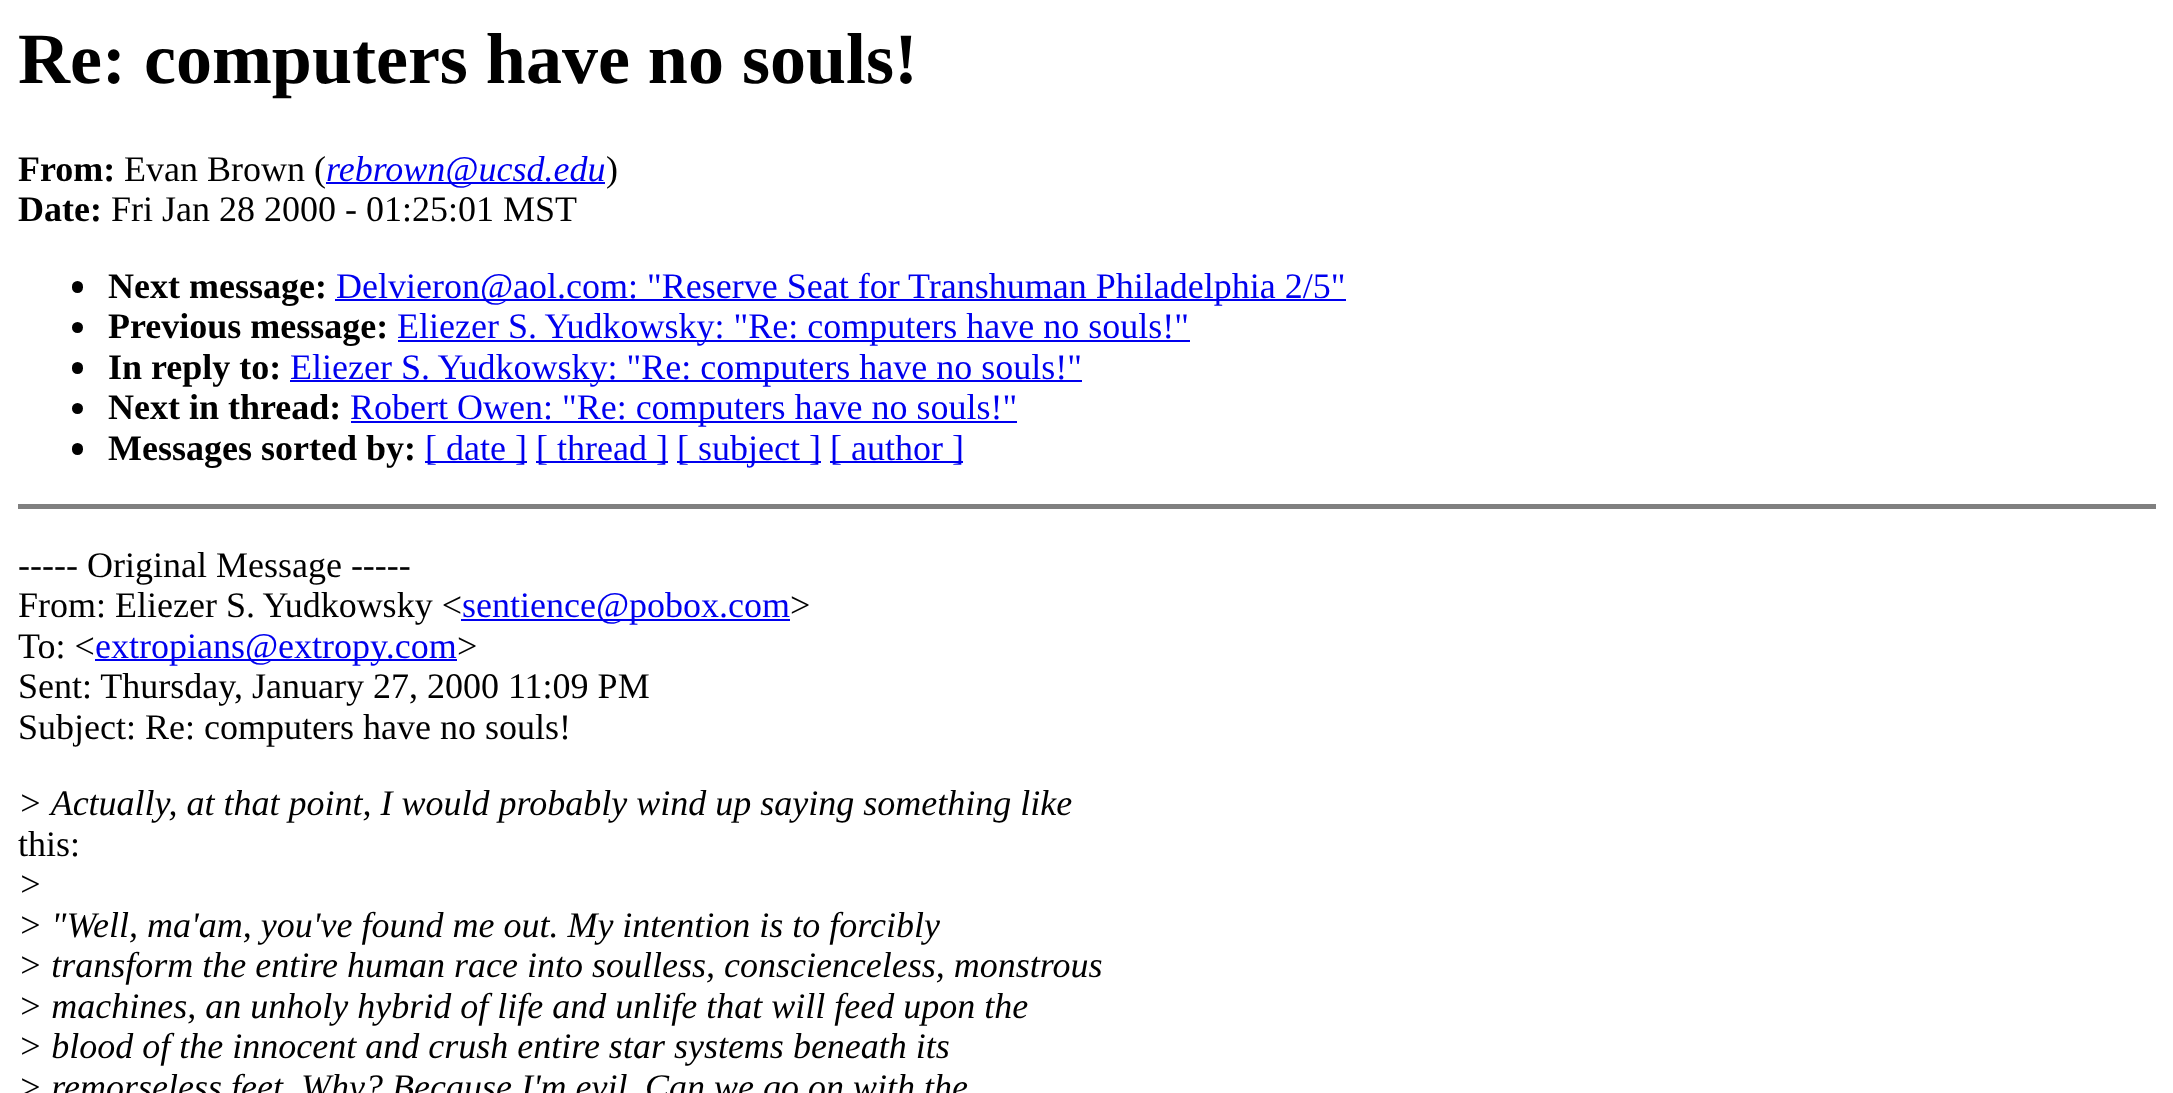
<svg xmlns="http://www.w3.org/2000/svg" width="2173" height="1093">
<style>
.a{font:bold 72px Liberation Serif;fill:#000}
.b{font:bold 36px Liberation Serif;fill:#000}
.c{font:36px Liberation Serif;fill:#000}
.d{font:italic 36px Liberation Serif;fill:#00e}
.e{font:36px Liberation Serif;fill:#00e}
.f{font:italic 36px Liberation Serif;fill:#000}
</style>
<rect width="100%" height="100%" fill="#fff"/>
<path fill="#00e" d="M326 182h279v2H326z"/>
<rect fill="#000" x="72" y="281" width="11" height="12" rx="5.5"/>
<path fill="#00e" d="M335 299h1011v2H335z"/>
<circle fill="#000" cx="77.5" cy="327.5" r="5.5"/>
<path fill="#00e" d="M398 340h792v2H398z"/>
<rect fill="#000" x="72" y="362" width="11" height="12" rx="5.5"/>
<path fill="#00e" d="M290 380h792v2H290z"/>
<circle fill="#000" cx="77.5" cy="408.5" r="5.5"/>
<path fill="#00e" d="M351 421h666v2H351z"/>
<rect fill="#000" x="72" y="443" width="11" height="12" rx="5.5"/>
<path fill="#00e" d="M425 461h102v2H425z"/>
<path fill="#00e" d="M536 461h132v2H536z"/>
<path fill="#00e" d="M677 461h144v2H677z"/>
<path fill="#00e" d="M830 461h133v2H830z"/>
<path fill="#808080" d="M18 504h2138v5H18z"/>
<path fill="#00e" d="M461 619h329v2H461z"/>
<path fill="#00e" d="M95 659h362v2H95z"/>
<text class="a" x="18" y="83">Re: computers have no souls!</text>
<text class="b" x="18" y="181">From:</text>
<text class="c" x="124" y="181">Evan Brown (</text>
<text class="d" x="326" y="181">rebrown@ucsd.edu</text>
<text class="c" x="606" y="181">)</text>
<text class="b" x="18" y="221">Date:</text>
<text class="c" x="111" y="221">Fri Jan 28 2000 - 01:25:01 MST</text>
<text class="b" x="108" y="298">Next message:</text>
<text class="e" x="336" y="298">Delvieron@aol.com: "Reserve Seat for Transhuman Philadelphia 2/5"</text>
<text class="b" x="108" y="338">Previous message:</text>
<text class="e" x="397" y="338">Eliezer S. Yudkowsky: "Re: computers have no souls!"</text>
<text class="b" x="108" y="379">In reply to:</text>
<text class="e" x="290" y="379">Eliezer S. Yudkowsky: "Re: computers have no souls!"</text>
<text class="b" x="108" y="419">Next in thread:</text>
<text class="e" x="350" y="419">Robert Owen: "Re: computers have no souls!"</text>
<text class="b" x="108" y="460">Messages sorted by:</text>
<text class="e" x="425" y="460">[ date ]</text>
<text class="e" x="536" y="460">[ thread ]</text>
<text class="e" x="677" y="460">[ subject ]</text>
<text class="e" x="830" y="460">[ author ]</text>
<text class="c" x="18" y="577">----- Original Message -----</text>
<text class="c" x="18" y="617">From: Eliezer S. Yudkowsky &lt;</text>
<text class="e" x="462" y="617">sentience@pobox.com</text>
<text class="c" x="790" y="617">&gt;</text>
<text class="c" x="18" y="658">To: &lt;</text>
<text class="e" x="95" y="658">extropians@extropy.com</text>
<text class="c" x="457" y="658">&gt;</text>
<text class="c" x="18" y="698">Sent: Thursday, January 27, 2000 11:09 PM</text>
<text class="c" x="18" y="739">Subject: Re: computers have no souls!</text>
<text class="f" x="18" y="815">&gt; Actually, at that point, I would probably wind up saying something like</text>
<text class="c" x="18" y="856">this:</text>
<text class="f" x="18" y="896">&gt;</text>
<text class="f" x="18" y="937">&gt; "Well, ma'am, you've found me out. My intention is to forcibly</text>
<text class="f" x="18" y="977">&gt; transform the entire human race into soulless, conscienceless, monstrous</text>
<text class="f" x="18" y="1018">&gt; machines, an unholy hybrid of life and unlife that will feed upon the</text>
<text class="f" x="18" y="1058">&gt; blood of the innocent and crush entire star systems beneath its</text>
<text class="f" x="18" y="1099">&gt; remorseless feet</text>
<text class="f" x="301" y="1099">Why? Because I'm evil</text>
<text class="f" x="645" y="1099">Can we go on with the</text>
</svg>
